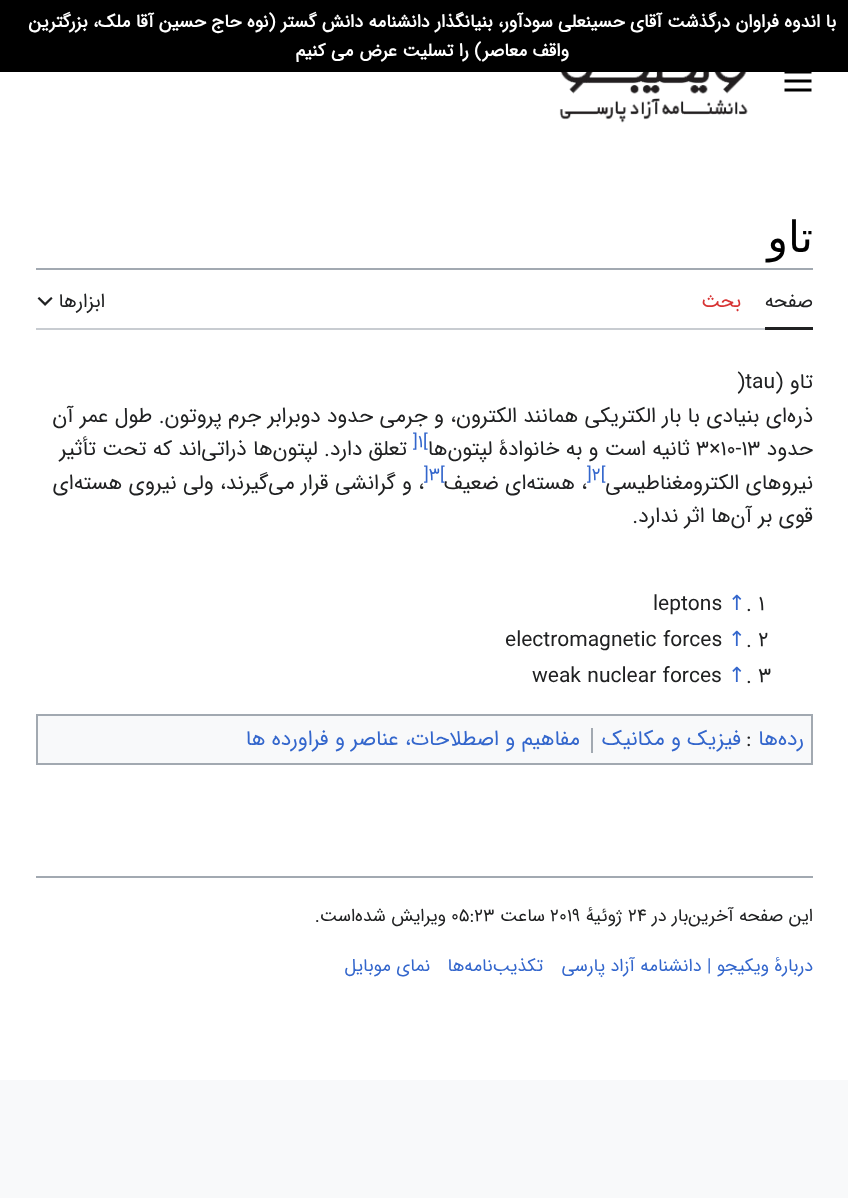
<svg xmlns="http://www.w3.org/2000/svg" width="848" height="1198">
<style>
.a{font:bold 18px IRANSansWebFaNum;direction:rtl;fill:#fff}
.b{font:43px DejaVu Sans;direction:rtl;fill:#000}
.c{font:19.5px IRANSansWebFaNum;direction:rtl;fill:#202122}
.d{font:19.5px IRANSansWebFaNum;direction:rtl;fill:#d73333}
.e{font:21px IRANSansWebFaNum;direction:rtl;fill:#202122}
.f{font:21px IRANSansWebFaNum;fill:#202122}
.g{font:18px IRANSansWebFaNum;fill:#36c}
.h{font:21px DejaVu Sans;fill:#36c}
.i{font:21px IRANSansWebFaNum;direction:rtl;fill:#36c}
.j{font:18px IRANSansWebFaNum;direction:rtl;fill:#202122}
.k{font:18px IRANSansWebFaNum;fill:#202122}
.l{font:18px IRANSansWebFaNum;direction:rtl;fill:#36c}
</style>
<rect width="100%" height="100%" fill="#f8f9fa"/>
<path fill="#000" d="M0 0h848v72H0z"/>
<path fill="#fff" d="M0 72h848v1008H0z"/>
<image href="1.png" x="784" y="72" width="28" height="20"/>
<image href="2.png" x="559" y="72" width="189" height="51"/>
<path fill="#a2a9b1" d="M36 268h777v2H36z"/>
<path fill="#c8ccd1" d="M36 328h729v2H36z"/>
<path fill="#202122" d="M765 327h48v3H765z"/>
<image href="3.png" x="37" y="297" width="16" height="9"/>
<path fill="#f8f9fa" stroke="#a2a9b1" stroke-width="2" d="M37 715h775v49H37z"/>
<path fill="#a2a9b1" d="M591 728h2v25H591z"/>
<path fill="#a2a9b1" d="M36 876h777v2H36z"/>
<text class="a" x="836" y="27">با اندوه فراوان درگذشت آقای حسینعلی سودآور، بنیانگذار دانشنامه دانش گستر (نوه حاج حسین آقا ملک، بزرگترین</text>
<text class="a" x="569" y="56">واقف معاصر) را تسلیت عرض می کنیم</text>
<text class="b" x="813" y="252">تاو</text>
<text class="c" x="813" y="307">صفحه</text>
<text class="d" x="741" y="307">بحث</text>
<text class="c" x="105" y="307">ابزارها</text>
<text class="e" x="813" y="388">تاو (</text>
<text class="f" x="737" y="388">)tau</text>
<text class="e" x="813" y="422">ذره‌ای بنیادی با بار الکتریکی همانند الکترون، و جرمی حدود دوبرابر جرم پروتون. طول عمر آن</text>
<text class="e" x="813" y="455">حدود</text>
<text class="f" x="696" y="455">۳×۱۰-۱۳</text>
<text class="e" x="690" y="455">ثانیه است و به خانوادۀ لپتون‌ها</text>
<text class="g" x="413" y="447">]۱[</text>
<text class="e" x="407" y="455">تعلق دارد. لپتون‌ها ذراتی‌اند که تحت تأثیر</text>
<text class="e" x="813" y="489">نیروهای الکترومغناطیسی</text>
<text class="g" x="587" y="480">]۲[</text>
<text class="e" x="587" y="489">، هسته‌ای ضعیف</text>
<text class="g" x="424" y="480">]۳[</text>
<text class="e" x="424" y="489">، و گرانشی قرار می‌گیرند، ولی نیروی هسته‌ای</text>
<text class="e" x="813" y="522">قوی بر آن‌ها اثر ندارد.</text>
<text class="f" x="746" y="610">. ۱</text>
<text class="h" x="728" y="610">↑</text>
<text class="f" x="653" y="610">leptons</text>
<text class="f" x="746" y="646">. ۲</text>
<text class="h" x="728" y="646">↑</text>
<text class="f" x="505" y="646">electromagnetic forces</text>
<text class="f" x="746" y="682">. ۳</text>
<text class="h" x="728" y="682">↑</text>
<text class="f" x="532" y="682">weak nuclear forces</text>
<text class="i" x="804" y="745">رده‌ها</text>
<text class="f" x="746" y="745">:</text>
<text class="i" x="741" y="745">فیزیک و مکانیک</text>
<text class="i" x="580" y="745">مفاهیم و اصطلاحات، عناصر و فراورده ها</text>
<text class="j" x="813" y="921">این صفحه آخرین‌بار در </text>
<text class="k" x="628" y="921">۲۴</text>
<text class="j" x="622" y="921">ژوئیهٔ</text>
<text class="k" x="550" y="921">۲۰۱۹</text>
<text class="j" x="545" y="921">ساعت </text>
<text class="k" x="451" y="921">۰۵:۲۳</text>
<text class="j" x="446" y="921">ویرایش شده‌است.</text>
<text class="l" x="813" y="971">دربارهٔ ویکیجو | دانشنامه آزاد پارسی</text>
<text class="l" x="543" y="971">تکذیب‌نامه‌ها</text>
<text class="l" x="430" y="971">نمای موبایل</text>
</svg>
